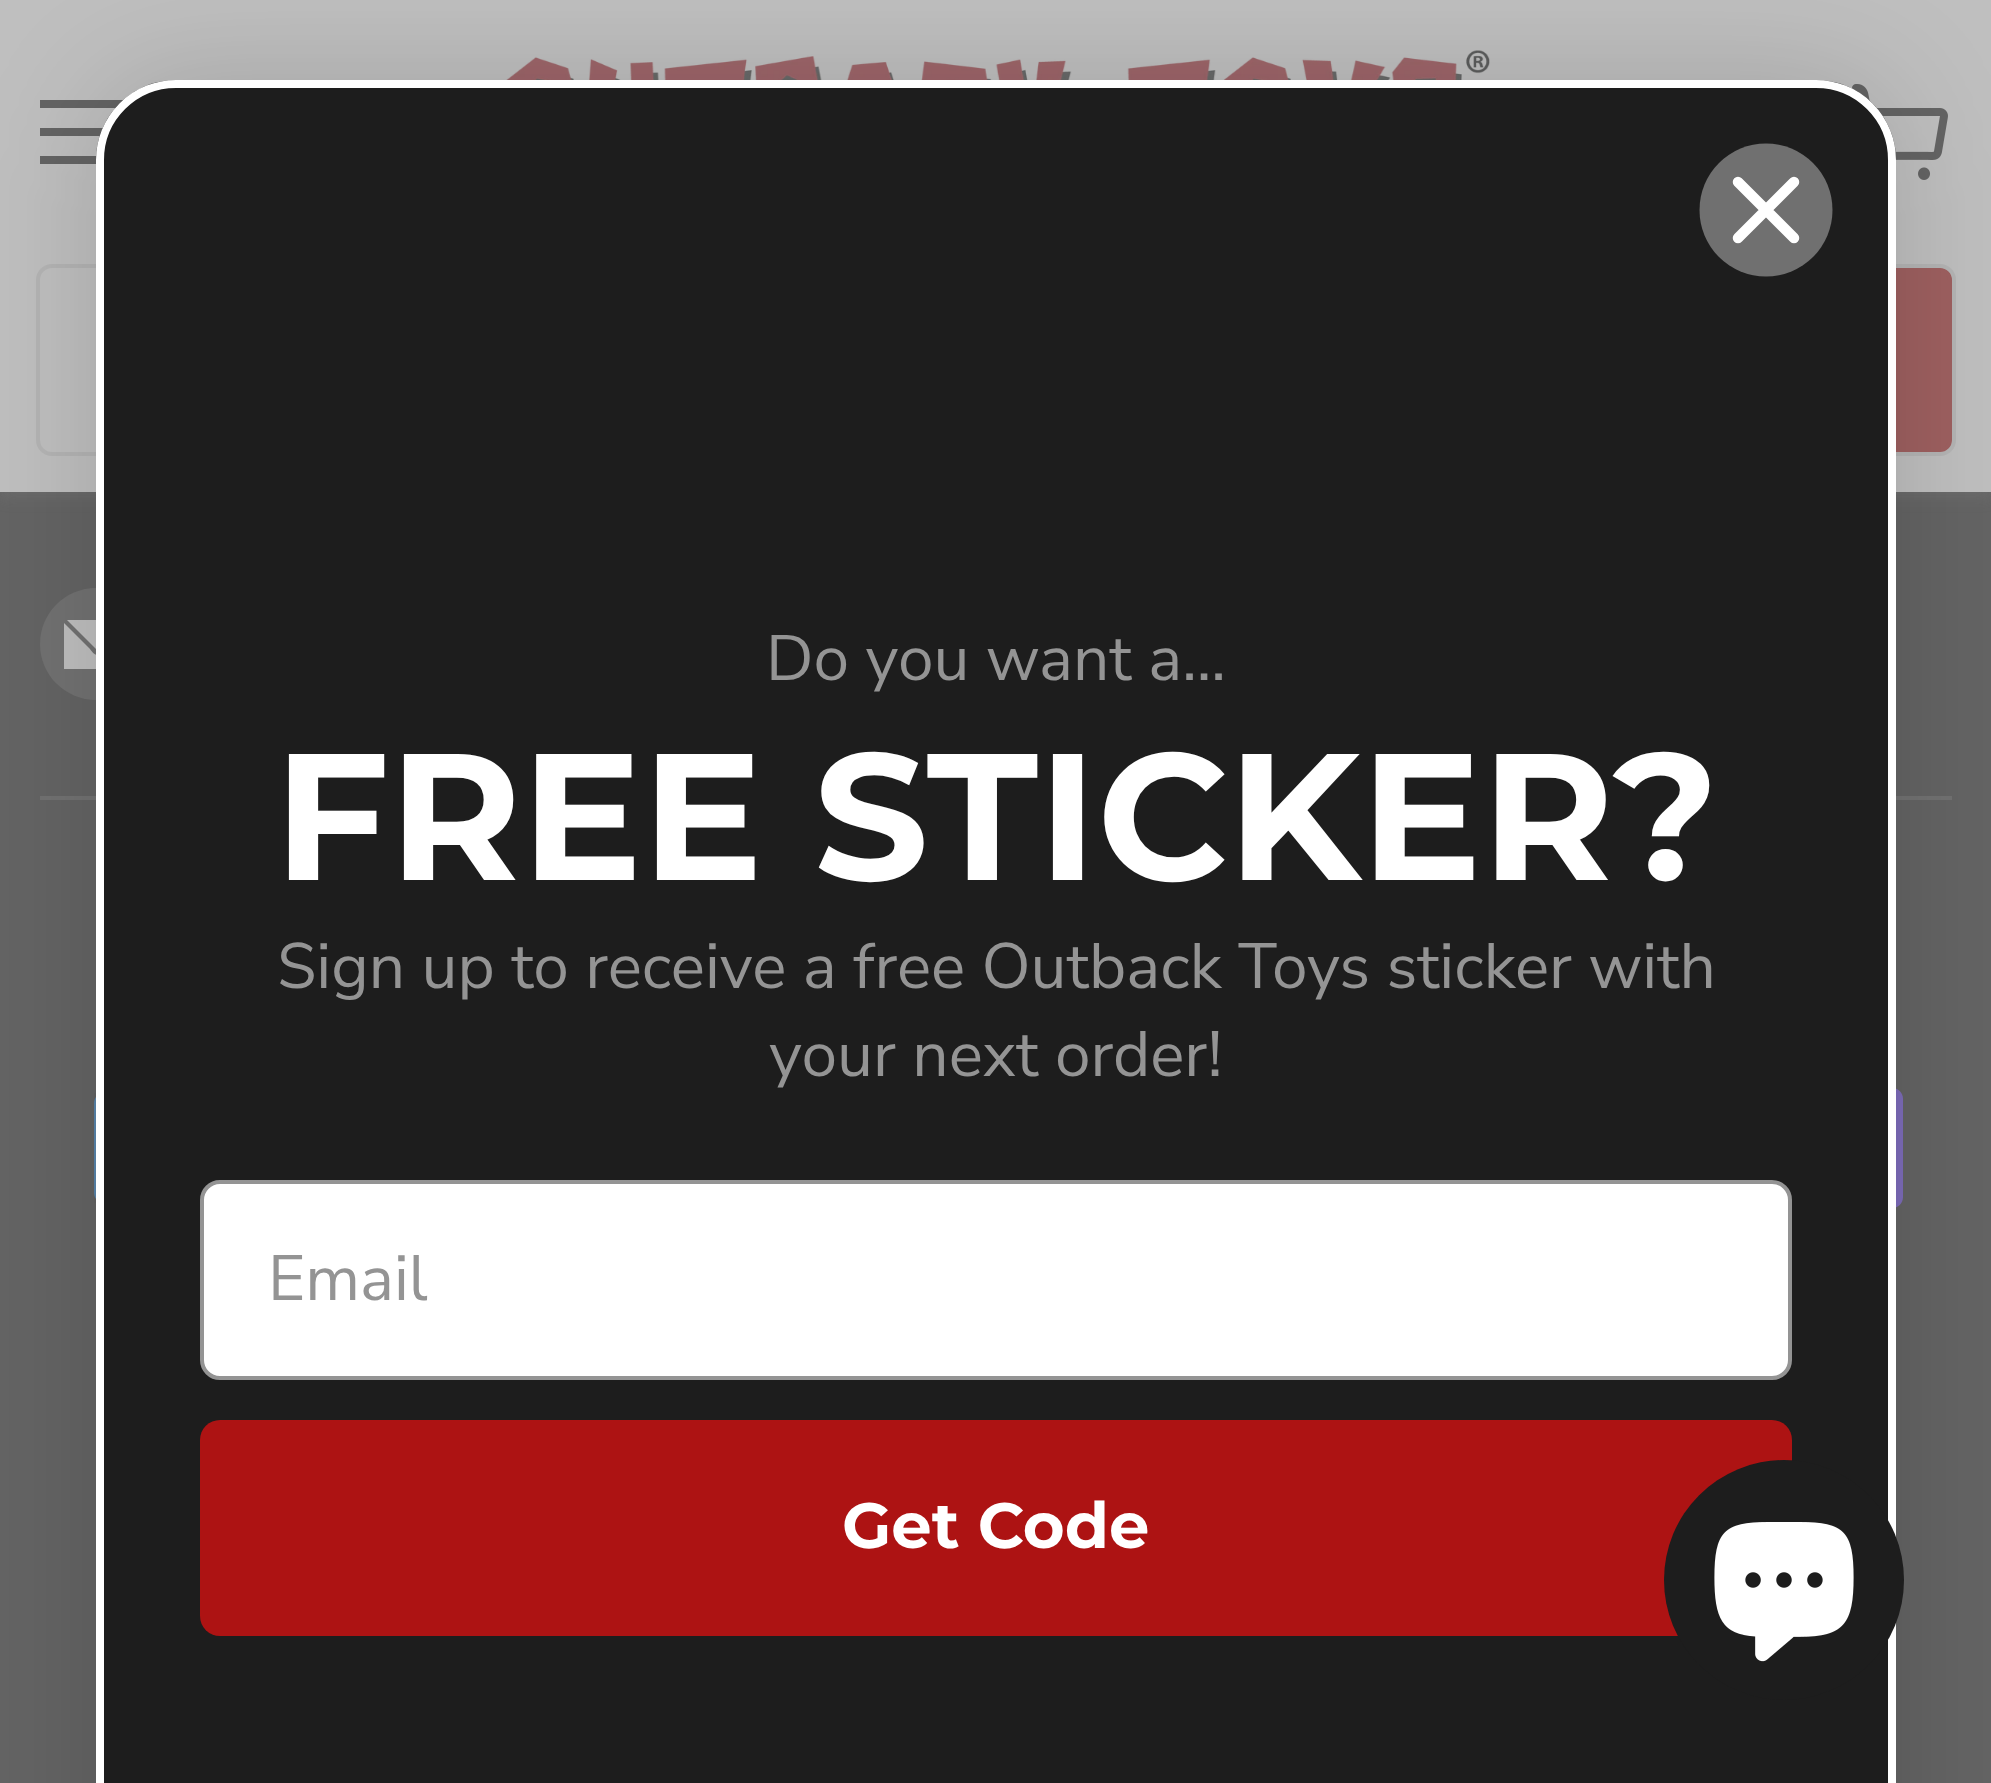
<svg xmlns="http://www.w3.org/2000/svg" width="1991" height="1783">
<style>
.a{font:64px Nunito Sans;fill:#949494}
.b{font:bold 180px Montserrat;fill:#fff}
.c{font:64px 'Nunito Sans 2';fill:#949494}
.d{font:bold 64px Montserrat;fill:#fff}
</style>
<rect width="100%" height="100%" fill="#646464"/>
<path fill="#8c8c8c40" filter="blur(8px)" d="M0 4h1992v492H0z"/>
<path fill="#bfbfbf" d="M0 0h1991v492H0z"/>
<image href="1.png" x="506" y="50" width="984" height="30"/>
<rect fill="none" stroke="#8c8c8c33" stroke-width="4" x="38" y="266" width="1916" height="188" rx="14"/>
<path fill="#9e6060" stroke="#9e6060" stroke-width="4" d="M1738 270h202c5.5 0 10 4.5 10 10v160c0 5.5-4.5 10-10 10h-202z"/>
<path fill="#646464" d="M40 100h88v8H40z"/>
<path fill="#646464" d="M40 128h63v8H40z"/>
<path fill="#646464" d="M40 156h57v8H40z"/>
<image href="2.png" x="1852" y="84" width="96" height="96"/>
<path fill="#727272" d="M40 796h1912v4H40z"/>
<circle fill="#727272" cx="96" cy="644" r="56"/>
<path fill="#bfbfbf" d="M98 654c-3 3-8-5-8-5l-26-26v46h64v-46z"/>
<path fill="#bfbfbf" d="M125 620h-58l29 29z"/>
<image href="3.png" x="94" y="1093" width="2" height="110"/>
<image href="4.png" x="1896" y="1088" width="7" height="120"/>
<rect fill="#00000026" filter="blur(60px)" x="96" y="80" width="1800" height="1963" rx="80"/>
<path fill="#1d1d1d" d="M176 80h1640c44 0 80 36 80 80v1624h-1800v-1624c0-44 36-80 80-80z"/>
<rect fill="none" stroke="#fff" stroke-width="8" x="100" y="84" width="1792" height="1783" rx="76"/>
<circle fill="#707070" cx="1766" cy="210" r="66.5"/>
<path fill="none" stroke="#fff" stroke-width="10.5" stroke-linecap="round" stroke-linejoin="round" d="M1738 182l56 56m-56 0l56-56z"/>
<rect fill="#fff" stroke="#949494" stroke-width="4" x="202" y="1182" width="1588" height="196" rx="18"/>
<rect fill="#ad1313" x="200" y="1420" width="1592" height="216" rx="20"/>
<circle fill="#1d1d1d" cx="1784" cy="1580" r="120"/>
<image href="5.png" x="1714" y="1522" width="140" height="140"/>
<text class="a" x="766" y="680">Do you want a...</text>
<text class="b" x="274" y="880">FREE STICKER?</text>
<text class="c" x="277" y="988">Sign up to receive a free Outback Toys sticker with</text>
<text class="c" x="769" y="1076">your next order!</text>
<text class="c" x="268" y="1300">Email</text>
<text class="d" x="842" y="1548">Get Code</text>
</svg>
